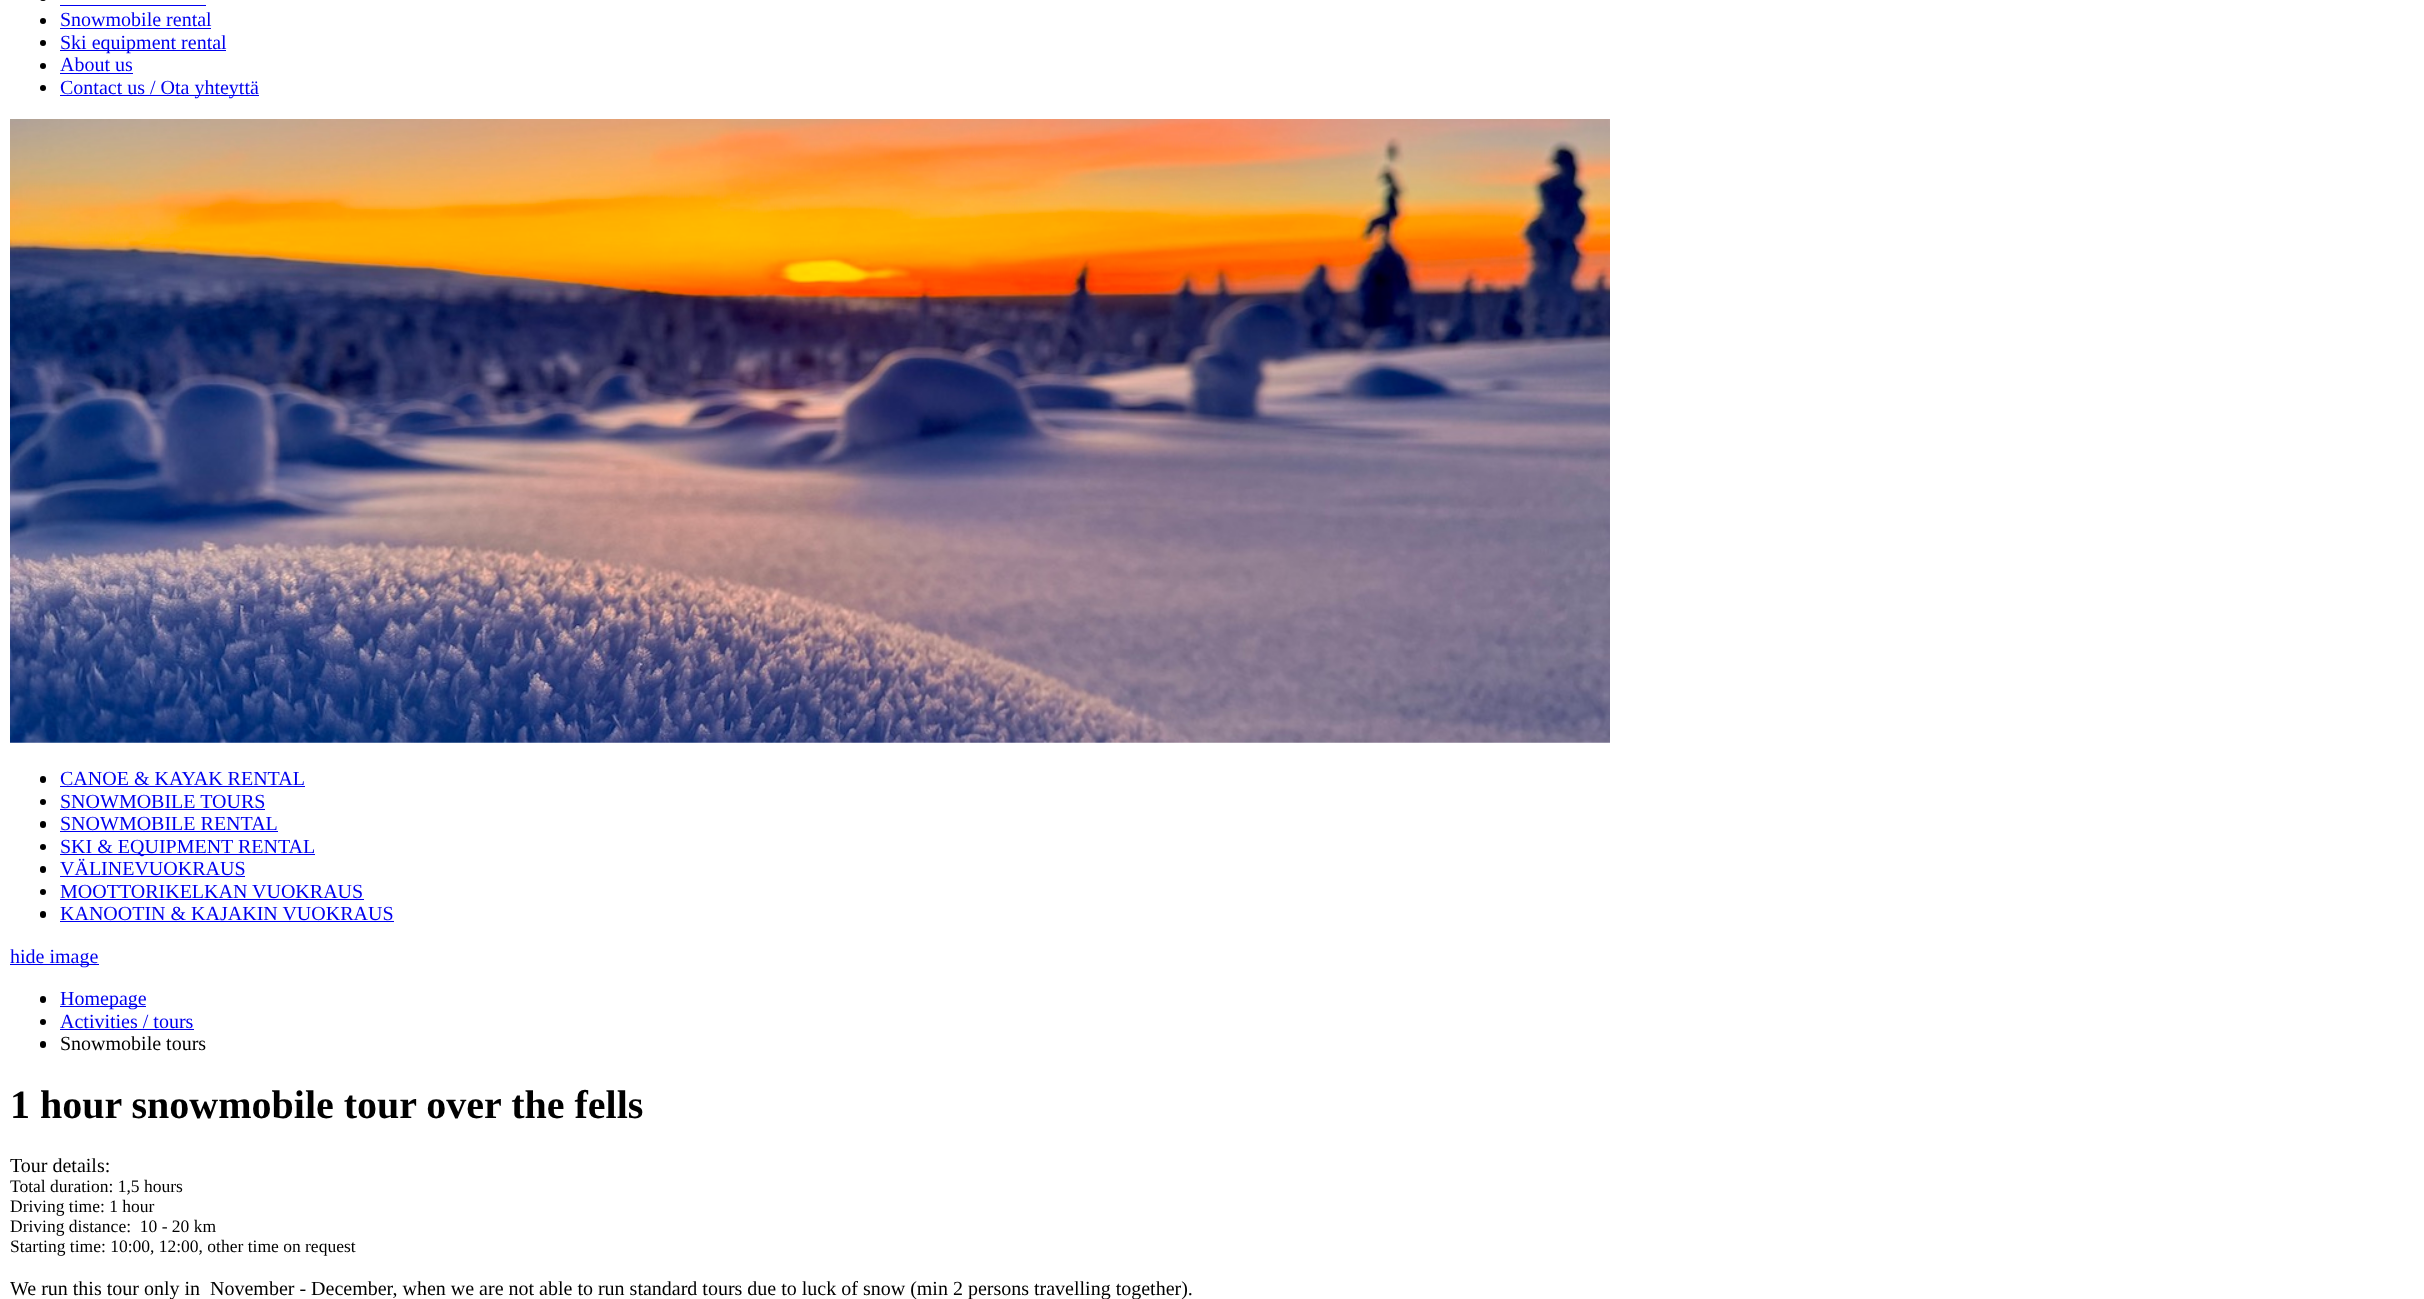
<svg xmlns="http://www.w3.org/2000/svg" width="2424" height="1299">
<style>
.a{font:20px Liberation Serif;fill:#00e}
.b{font:20px Liberation Serif;fill:#000}
.c{font:bold 40px Liberation Serif;fill:#000}
.d{font:17.5px Liberation Serif;fill:#000}
</style>
<rect width="100%" height="100%" fill="#fff"/>
<rect fill="#000" x="40" y="-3" width="6" height="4" rx="3"/>
<path fill="#00e" d="M60 5h146v1H60z"/>
<circle fill="#000" cx="43" cy="21" r="3"/>
<path fill="#00e" d="M60 28h151v1H60z"/>
<circle fill="#000" cx="43" cy="43" r="3"/>
<path fill="#00e" d="M60 50h166v1H60z"/>
<circle fill="#000" cx="43" cy="66" r="3"/>
<path fill="#00e" d="M60 73h73v1H60z"/>
<circle fill="#000" cx="43" cy="88" r="3"/>
<path fill="#00e" d="M60 95h199v1H60z"/>
<image href="1.png" x="10" y="119" width="1600" height="624"/>
<rect fill="#000" x="40" y="776" width="6" height="7" rx="3"/>
<path fill="#00e" d="M60 786h245v1H60z"/>
<circle fill="#000" cx="43" cy="802" r="3"/>
<path fill="#00e" d="M60 809h205v1H60z"/>
<rect fill="#000" x="40" y="821" width="6" height="7" rx="3"/>
<path fill="#00e" d="M60 831h218v1H60z"/>
<circle fill="#000" cx="43" cy="847" r="3"/>
<path fill="#00e" d="M60 854h255v1H60z"/>
<rect fill="#000" x="40" y="866" width="6" height="7" rx="3"/>
<path fill="#00e" d="M60 876h185v1H60z"/>
<circle fill="#000" cx="43" cy="892" r="3"/>
<path fill="#00e" d="M60 899h304v1H60z"/>
<rect fill="#000" x="40" y="911" width="6" height="7" rx="3"/>
<path fill="#00e" d="M60 921h334v1H60z"/>
<path fill="#00e" d="M10 964h89v1H10z"/>
<rect fill="#000" x="40" y="996" width="6" height="7" rx="3"/>
<path fill="#00e" d="M60 1006h86v1H60z"/>
<circle fill="#000" cx="43" cy="1022" r="3"/>
<path fill="#00e" d="M60 1029h134v1H60z"/>
<rect fill="#000" x="40" y="1041" width="6" height="7" rx="3"/>
<text class="a" x="60" y="26">Snowmobile rental</text>
<text class="a" x="60" y="49">Ski equipment rental</text>
<text class="a" x="60" y="71">About us</text>
<text class="a" x="60" y="94">Contact us / Ota yhteyttä</text>
<text class="a" x="60" y="785">CANOE &amp; KAYAK RENTAL</text>
<text class="a" x="60" y="808">SNOWMOBILE TOURS</text>
<text class="a" x="60" y="830">SNOWMOBILE RENTAL</text>
<text class="a" x="60" y="853">SKI &amp; EQUIPMENT RENTAL</text>
<text class="a" x="60" y="875">VÄLINEVUOKRAUS</text>
<text class="a" x="60" y="898">MOOTTORIKELKAN VUOKRAUS</text>
<text class="a" x="60" y="920">KANOOTIN &amp; KAJAKIN VUOKRAUS</text>
<text class="a" x="10" y="963">hide image</text>
<text class="a" x="60" y="1005">Homepage</text>
<text class="a" x="60" y="1028">Activities / tours</text>
<text class="b" x="60" y="1050">Snowmobile tours</text>
<text class="c" x="10" y="1118">1 hour snowmobile tour over the fells</text>
<text class="b" x="10" y="1172">Tour details:</text>
<text class="d" x="10" y="1192">Total duration: 1,5 hours</text>
<text class="d" x="10" y="1212">Driving time: 1 hour</text>
<text class="d" xml:space="preserve" x="10" y="1232">Driving distance:  10 - 20 km</text>
<text class="d" x="10" y="1252">Starting time: 10:00, 12:00, other time on request</text>
<text class="b" xml:space="preserve" x="10" y="1295">We run this tour only in  November - December, when we are not able to run standard tours due to luck of snow (min 2 persons travelling together).</text>
</svg>
